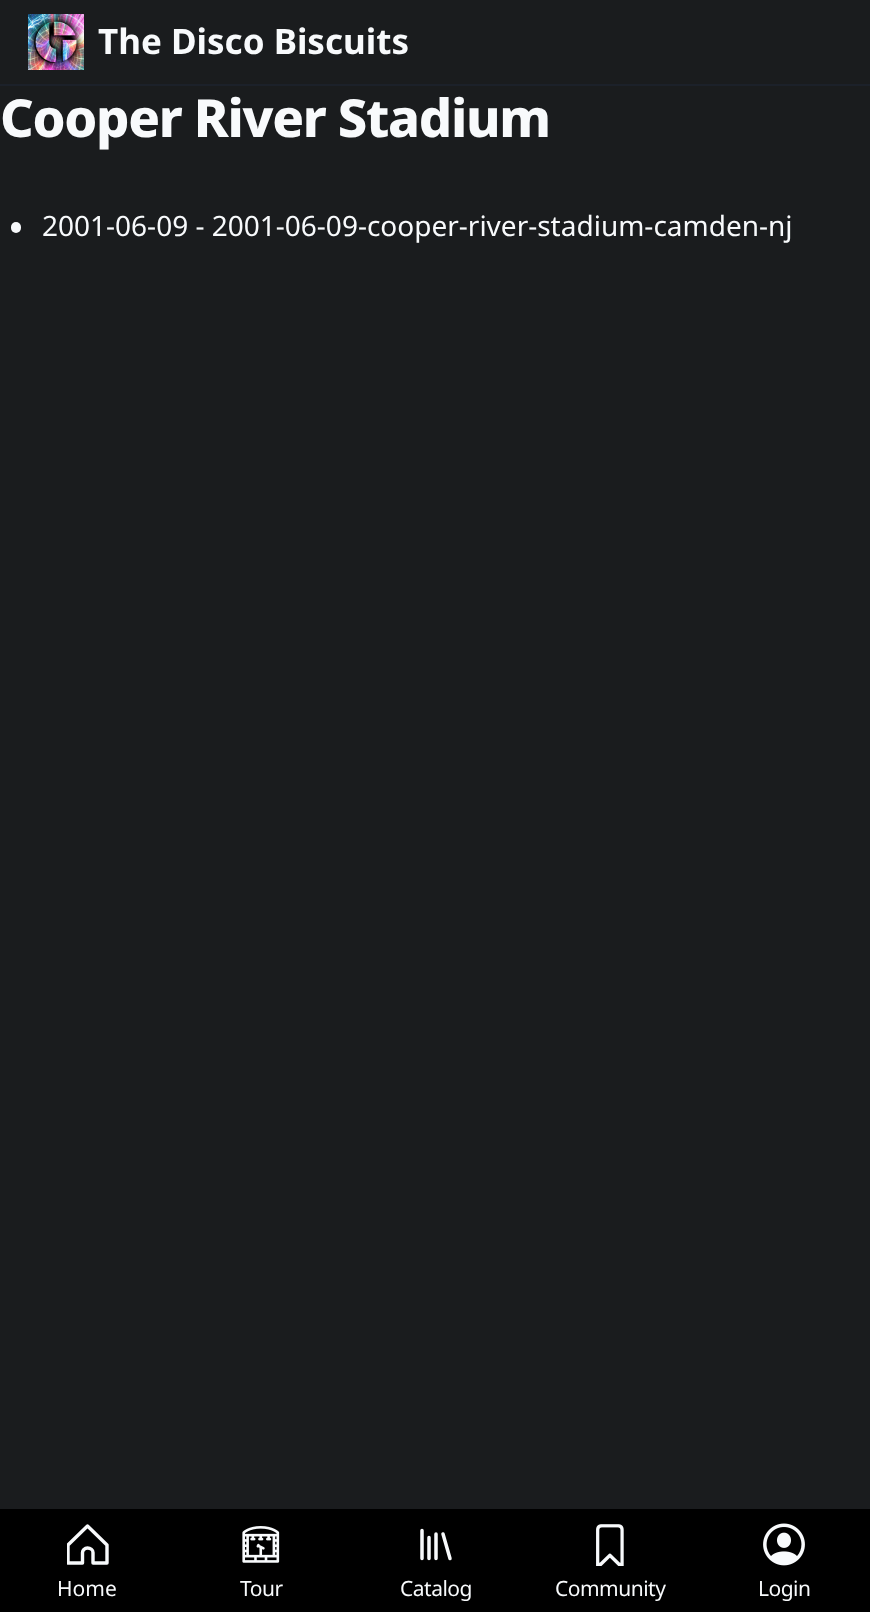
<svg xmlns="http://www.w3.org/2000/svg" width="870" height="1612">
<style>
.a{font:bold 35px Noto Sans;fill:#f8fafc}
.b{font:800 52.5px Noto Sans;letter-spacing:-1.3px;fill:#f8fafc}
.c{font:28px Noto Sans;fill:#f8fafc}
.d{font:21px Noto Sans;fill:#f8fafc}
.e{font:21px Noto Sans;letter-spacing:-0.5px;fill:#f8fafc}
</style>
<defs>
<clipPath id="clip1"><path d="M67 1523h42v43H67z"/></clipPath>
</defs>
<rect width="100%" height="100%" fill="#1a1c1e"/>
<path fill="#1c212a" d="M0 84h870v2H0z"/>
<image href="1.png" x="28" y="14" width="56" height="56"/>
<rect fill="#f8fafc" x="11" y="222" width="10" height="11" rx="5"/>
<path fill="#000" d="M0 1509h870v103H0z"/>
<g clip-path="url(#clip1)">
<path fill="none" stroke="#f8fafc" stroke-width="3.4" stroke-linejoin="round" d="M68 1545v18h14.5v-10.5c0-2 2-4.5 5-4.5c3 0 5.5 2 5.5 4.5v10.5h14v-18l-19.5-19z"/>
</g>
<image href="2.png" x="242" y="1526" width="38" height="37"/>
<path fill="none" stroke="#f8fafc" stroke-width="3.5" stroke-linecap="round" stroke-linejoin="round" d="M443 1534l7 24.5m-14-24.5v24.5m-7-21v21m-7-28v28"/>
<image href="3.png" x="596" y="1524" width="28" height="42"/>
<image href="4.png" x="763" y="1523" width="42" height="43"/>
<text class="a" x="98" y="54">The Disco Biscuits</text>
<text class="b" x="0" y="137">Cooper River Stadium</text>
<text class="c" x="42" y="236">2001-06-09 - 2001-06-09-cooper-river-stadium-camden-nj</text>
<text class="d" x="57" y="1596">Home</text>
<text class="e" x="240" y="1596">Tour</text>
<text class="e" x="400" y="1596">Catalog</text>
<text class="e" x="555" y="1596">Community</text>
<text class="e" x="758" y="1596">Login</text>
</svg>
